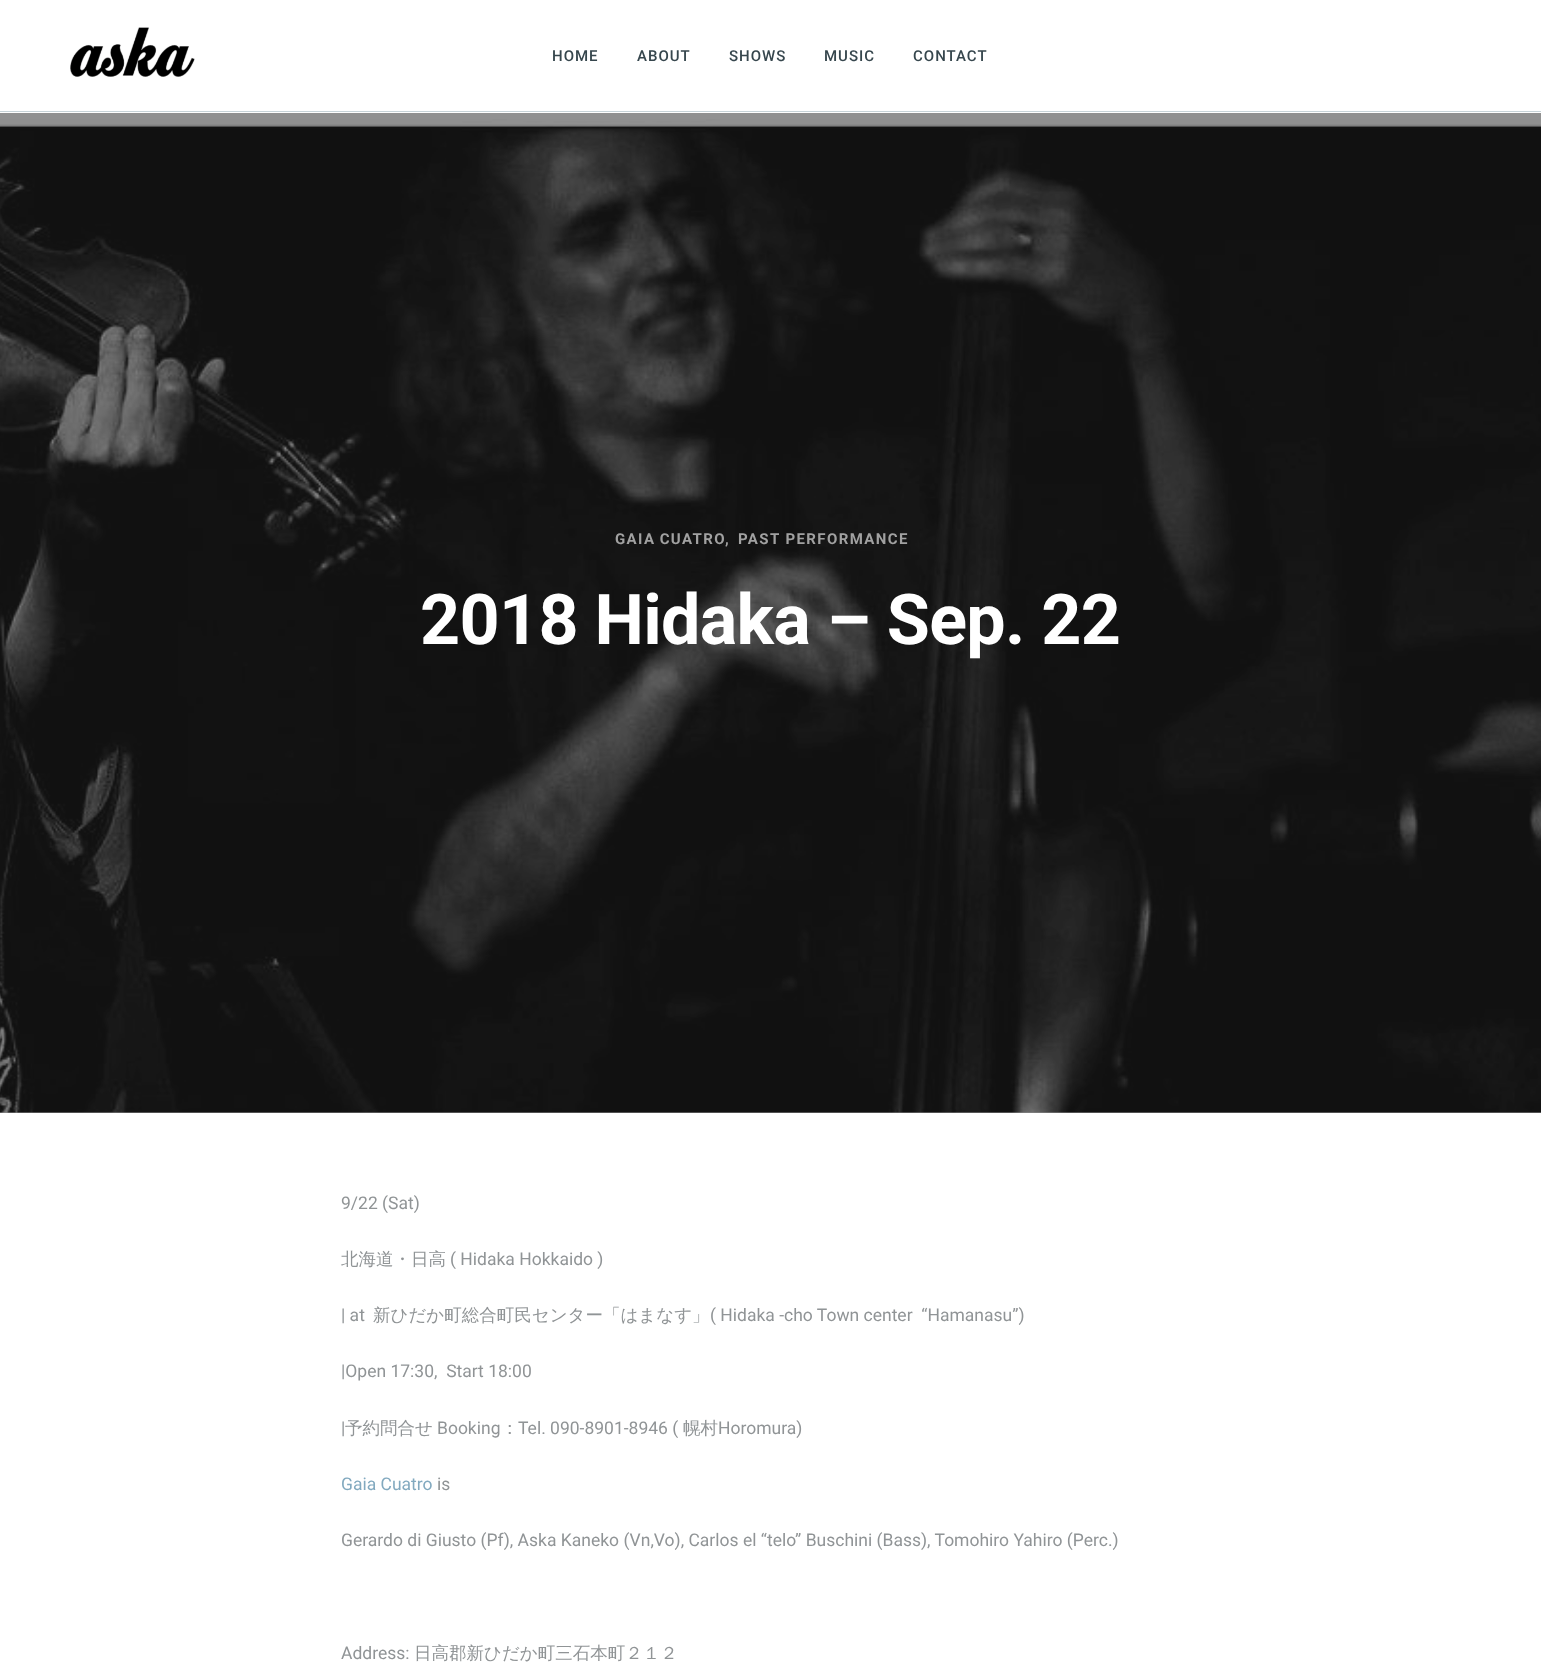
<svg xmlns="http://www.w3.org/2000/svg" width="1541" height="1668">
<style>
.a{font:500 15px Roboto;letter-spacing:1px;fill:#36464d}
.b{font:bold 15px Roboto;letter-spacing:1.4px;fill:#a1a1a1}
.c{font:bold 70px Roboto;letter-spacing:-0.7px;fill:#fff}
.d{font:17.5px Roboto;fill:#909496}
.e{font:500 17.5px WenQuanYi Zen Hei;fill:#909496}
.f{font:17.5px Roboto;fill:#82a9bf}
</style>
<rect width="100%" height="100%" fill="#fff"/>
<path fill="#919191" d="M0 113h1541v1000H0z"/>
<path fill="#c7d3d8" d="M0 111h1541v1H0z"/>
<image href="1.png" x="70" y="27" width="125" height="50"/>
<image href="2.png" x="0" y="119" width="1541" height="994"/>
<text class="a" x="552" y="61">HOME</text>
<text class="a" x="637" y="61">ABOUT</text>
<text class="a" x="729" y="61">SHOWS</text>
<text class="a" x="824" y="61">MUSIC</text>
<text class="a" x="913" y="61">CONTACT</text>
<text class="b" x="615" y="544" word-spacing="-1">GAIA CUATRO</text>
<text class="b" x="725" y="544">,</text>
<text class="b" x="738" y="544">PAST PERFORMANCE</text>
<text class="c" x="420" y="644">2018 Hidaka – Sep. 22</text>
<text class="d" x="341" y="1209">9/22 (Sat)</text>
<text class="e" x="341" y="1265">北海道・日高</text>
<text class="d" x="450" y="1265">( Hidaka Hokkaido )</text>
<text class="d" x="341" y="1321">| at</text>
<text class="e" x="373" y="1321">新ひだか町総合町民センター「はまなす」</text>
<text class="d" xml:space="preserve" x="710" y="1321">( Hidaka -cho Town center  “Hamanasu”)</text>
<text class="d" xml:space="preserve" x="341" y="1377">|Open 17:30,  Start 18:00</text>
<text class="d" x="341" y="1434">|</text>
<text class="e" x="345" y="1434">予約問合せ</text>
<text class="d" x="437" y="1434">Booking</text>
<text class="e" x="501" y="1434">：</text>
<text class="d" x="518" y="1434">Tel. 090-8901-8946 (</text>
<text class="e" x="683" y="1434">幌村</text>
<text class="d" x="718" y="1434">Horomura)</text>
<text class="f" x="341" y="1490">Gaia Cuatro</text>
<text class="d" x="437" y="1490">is</text>
<text class="d" x="341" y="1546">Gerardo di Giusto (Pf), Aska Kaneko (Vn,Vo), Carlos el “telo” Buschini (Bass), Tomohiro Yahiro (Perc.)</text>
<text class="d" x="341" y="1659">Address:</text>
<text class="e" x="414" y="1659">日高郡新ひだか町三石本町２１２</text>
</svg>
